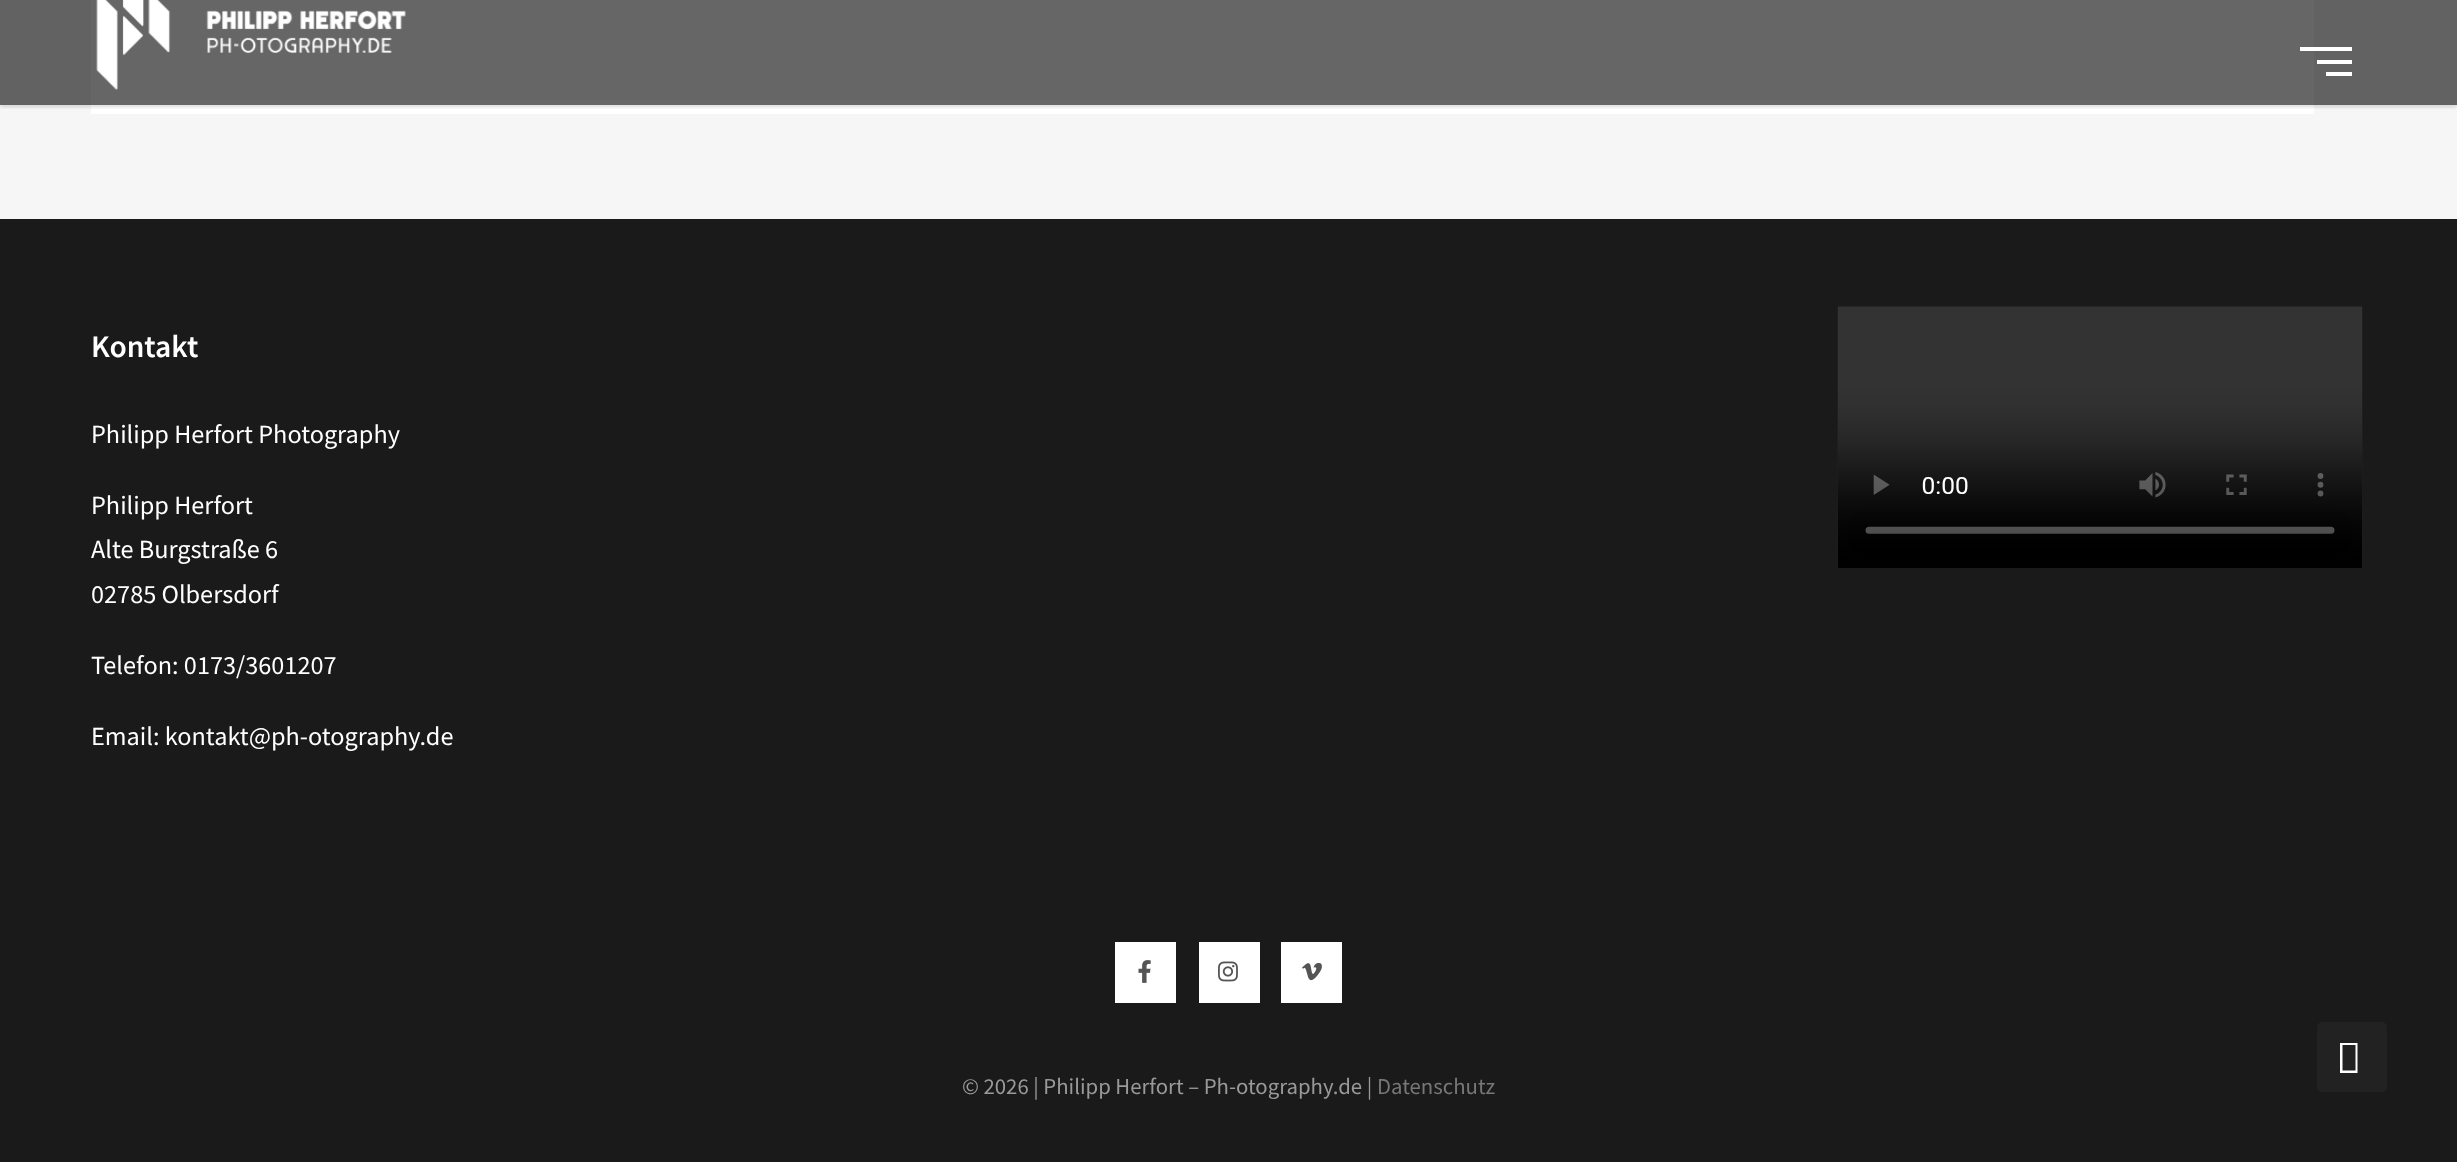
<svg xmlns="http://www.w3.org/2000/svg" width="2457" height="1162">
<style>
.a{font:600 31.5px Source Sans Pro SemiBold;fill:#fff}
.b{font:26.25px Source Sans Pro;fill:#fff}
.c{font:22.75px Source Sans Pro;fill:#999}
.d{font:22.75px Source Sans Pro;fill:#777}
</style>
<defs>
<clipPath id="clip1"><path d="M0 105h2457v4H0z"/></clipPath>
</defs>
<rect width="100%" height="100%" fill="#f6f6f6"/>
<path fill="#626262" d="M0 0h2457v105H0z"/>
<path fill="#fff" d="M91 105h2223v9H91z"/>
<path fill="#666" d="M91 0h2223v105H91z"/>
<g clip-path="url(#clip1)">
<path fill="#00000026" filter="blur(2px)" d="M0 2h2457v105H0z"/>
</g>
<image href="1.png" x="96" y="0" width="310" height="90"/>
<path fill="#fff" d="M2317 60h35v4H2317z"/>
<path fill="#fff" d="M2300 47h52v4H2300z"/>
<path fill="#fff" d="M2326 72h26v4H2326z"/>
<path fill="#1a1a1a" d="M0 219h2457v943H0z"/>
<image href="2.png" x="1837" y="306" width="526" height="262"/>
<path fill="#fff" d="M1115 942h61v61H1115z"/>
<image href="3.png" x="1138" y="960" width="13" height="23"/>
<path fill="#fff" d="M1199 942h61v61H1199z"/>
<image href="4.png" x="1218" y="961" width="20" height="21"/>
<path fill="#fff" d="M1281 942h61v61H1281z"/>
<image href="5.png" x="1302" y="962" width="20" height="19"/>
<rect fill="#222" x="2317" y="1022" width="70" height="70" rx="5"/>
<path fill="#fff" d="M2340 1073v-30h17.5v30zm2.5-2.5h13v-25.5h-13z"/>
<text class="a" x="91" y="357">Kontakt</text>
<text class="b" x="91" y="443">Philipp Herfort Photography</text>
<text class="b" x="91" y="514">Philipp Herfort</text>
<text class="b" x="91" y="558">Alte Burgstraße 6</text>
<text class="b" x="91" y="603">02785 Olbersdorf</text>
<text class="b" x="91" y="674">Telefon: 0173/3601207</text>
<text class="b" x="91" y="745">Email: kontakt@ph-otography.de</text>
<text class="c" x="962" y="1094">© 2026 | Philipp Herfort – Ph-otography.de |</text>
<text class="d" x="1377" y="1094">Datenschutz</text>
</svg>
